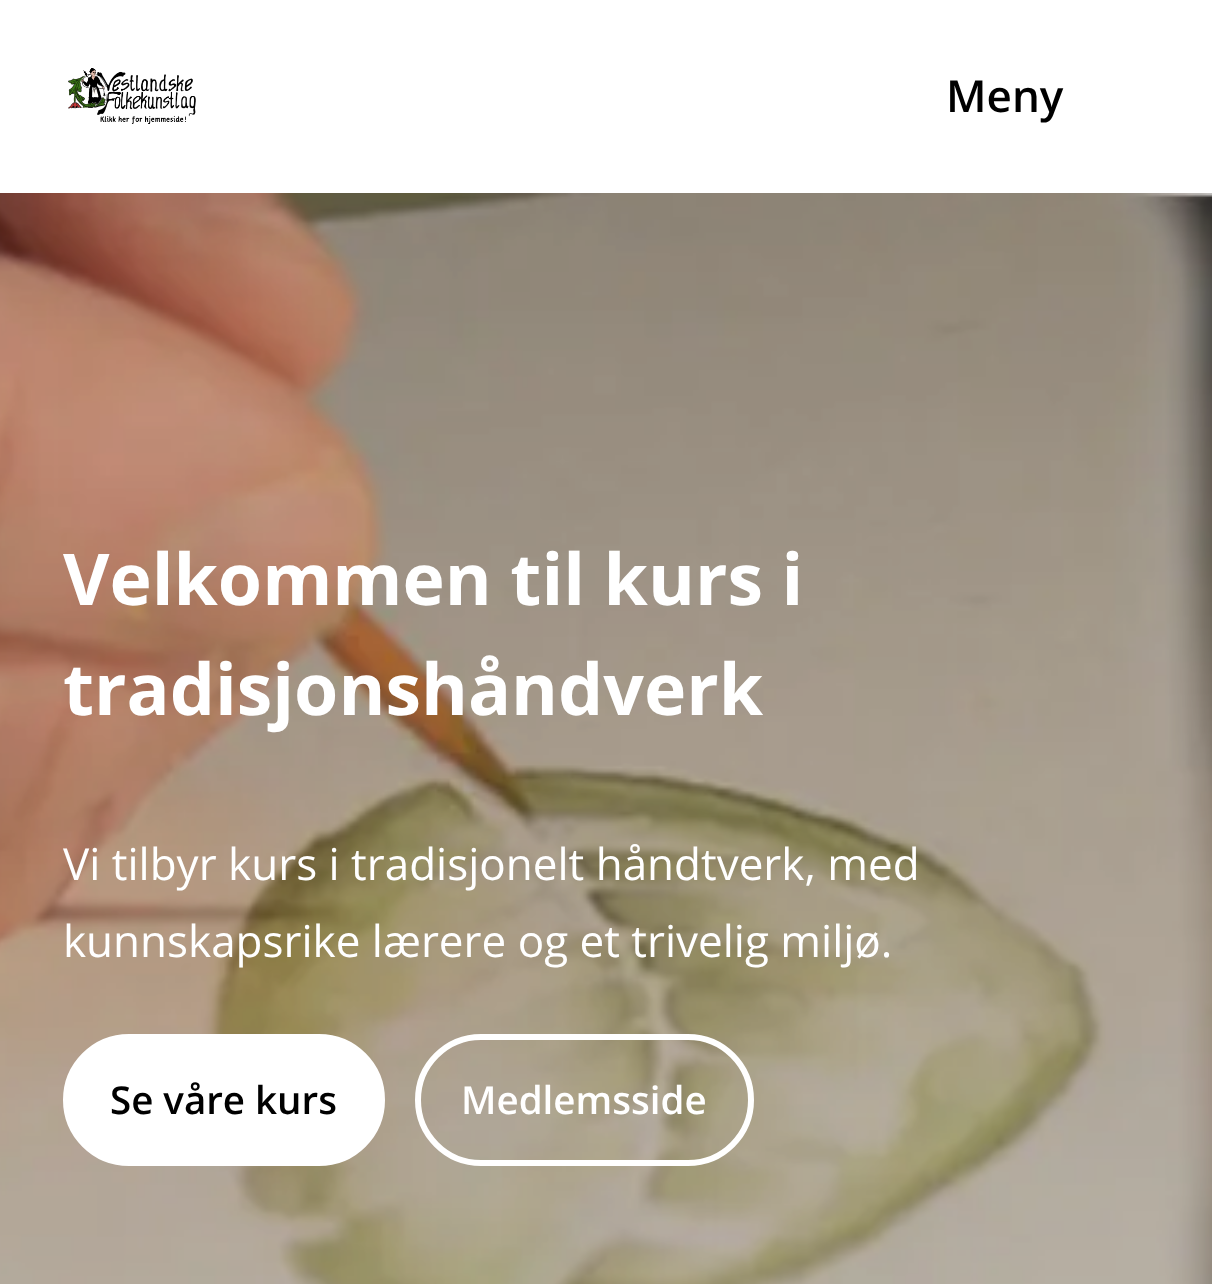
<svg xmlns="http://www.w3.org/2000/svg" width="1212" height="1284">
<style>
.a{font:600 44px Open Sans;fill:#000}
.b{font:bold 71.5px Open Sans;fill:#fff}
.c{font:44px Open Sans;fill:#fff}
.d{font:600 38.5px Open Sans;fill:#000}
.e{font:600 38.5px Open Sans;fill:#fff}
</style>
<rect width="100%" height="100%" fill="#fff"/>
<image href="1.png" x="68" y="68" width="128" height="56"/>
<image href="2.png" x="0" y="193" width="1212" height="1091"/>
<rect fill="#fff" stroke="#fff" stroke-width="6" x="66" y="1037" width="316" height="126" rx="63"/>
<rect fill="none" stroke="#fff" stroke-width="6" x="418" y="1037" width="333" height="126" rx="63"/>
<text class="a" x="946" y="112">Meny</text>
<text class="b" x="63" y="605">Velkommen til kurs i</text>
<text class="b" x="63" y="715">tradisjonshåndverk</text>
<text class="c" x="63" y="880">Vi tilbyr kurs i tradisjonelt håndtverk, med</text>
<text class="c" x="63" y="957">kunnskapsrike lærere og et trivelig miljø.</text>
<text class="d" x="110" y="1114">Se våre kurs</text>
<text class="e" x="461" y="1114">Medlemsside</text>
</svg>
